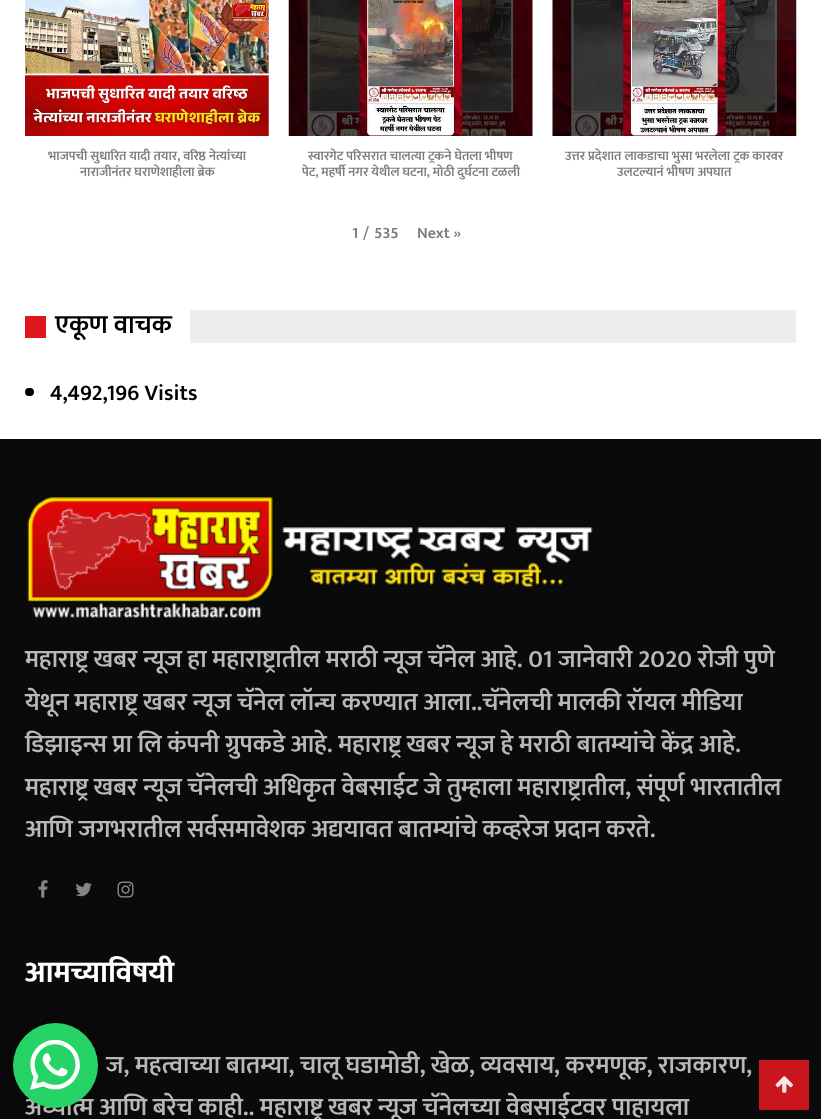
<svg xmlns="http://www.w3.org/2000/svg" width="821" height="1119">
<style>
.a{font:600 13px Mukta;fill:#7b7b7b}
.b{font:600 16px Mukta;fill:#7b7b7b}
.c{font:600 26.25px Mukta;fill:#000}
.d{font:600 22.5px Mukta;fill:#000}
.e{font:600 25px Mukta;fill:#b8b8b8}
.f{font:bold 30px Mukta;fill:#fff}
</style>
<rect width="100%" height="100%" fill="#fff"/>
<image href="3.png" x="552" y="0" width="245" height="136"/>
<path fill="#ffffff0d" d="M754 0h43v40H754z"/>
<path fill="#00000012" d="M754 0h1v40H754z"/>
<image href="1.png" x="25" y="0" width="244" height="136"/>
<image href="2.png" x="288" y="0" width="245" height="136"/>
<path fill="#df161e" d="M25 316h21v22H25z"/>
<path fill="#ededed" d="M190 310h606v33H190z"/>
<rect fill="#000" x="25" y="388" width="9" height="8" rx="4"/>
<path fill="#0a0a0a" d="M0 439h821v680H0z"/>
<image href="4.png" x="27" y="497" width="566" height="121"/>
<image href="5.png" x="38" y="880" width="10" height="18"/>
<image href="6.png" x="75" y="882" width="17" height="15"/>
<image href="7.png" x="117" y="881" width="17" height="17"/>
<rect fill="#00000080" filter="blur(7px)" x="13" y="1023" width="85" height="85" rx="42.5"/>
<path fill="#ca151c" d="M759 1060h50v50H759z"/>
<image href="9.png" x="775" y="1076" width="18" height="17"/>
<text class="a" x="48" y="160">भाजपची सुधारित यादी तयार, वरिष्ठ नेत्यांच्या</text>
<text class="a" x="80" y="176">नाराजीनंतर घराणेशाहीला ब्रेक</text>
<text class="a" x="308" y="160">स्वारगेट परिसरात चालत्या ट्रकने घेतला भीषण</text>
<text class="a" x="302" y="176">पेट, महर्षी नगर येथील घटना, मोठी दुर्घटना टळली</text>
<text class="a" x="565" y="160">उत्तर प्रदेशात लाकडाचा भुसा भरलेला ट्रक कारवर</text>
<text class="a" x="617" y="176">उलटल्यानं भीषण अपघात</text>
<text class="b" x="352" y="238">1</text>
<text class="b" x="363" y="238">/</text>
<text class="b" x="374" y="238">535</text>
<text class="b" x="417" y="238">Next »</text>
<text class="c" x="55" y="333">एकूण वाचक</text>
<text class="d" x="50" y="400">4,492,196 Visits</text>
<text class="e" x="25" y="667">महाराष्ट्र खबर न्यूज हा महाराष्ट्रातील मराठी न्यूज चॅनेल आहे. 01 जानेवारी 2020 रोजी पुणे</text>
<text class="e" x="25" y="710">येथून महाराष्ट्र खबर न्यूज चॅनेल लॉन्च करण्यात आला..चॅनेलची मालकी रॉयल मीडिया</text>
<text class="e" x="25" y="752">डिझाइन्स प्रा लि कंपनी ग्रुपकडे आहे. महाराष्ट्र खबर न्यूज हे मराठी बातम्यांचे केंद्र आहे.</text>
<text class="e" x="25" y="795">महाराष्ट्र खबर न्यूज चॅनेलची अधिकृत वेबसाईट जे तुम्हाला महाराष्ट्रातील, संपूर्ण भारतातील</text>
<text class="e" x="25" y="837">आणि जगभरातील सर्वसमावेशक अद्ययावत बातम्यांचे कव्हरेज प्रदान करते.</text>
<text class="f" x="25" y="982">आमच्याविषयी</text>
<text class="e" x="106" y="1073">ज, महत्वाच्या बातम्या, चालू घडामोडी, खेळ, व्यवसाय, करमणूक, राजकारण,</text>
<text class="e" x="25" y="1115">अध्यात्म आणि बरेच काही.. महाराष्ट्र खबर न्यूज चॅनेलच्या वेबसाईटवर पाहायला</text>
<circle fill="#25d366" cx="55.5" cy="1065.5" r="42.5"/>
<image href="8.png" x="30" y="1040" width="50" height="50"/>
</svg>
